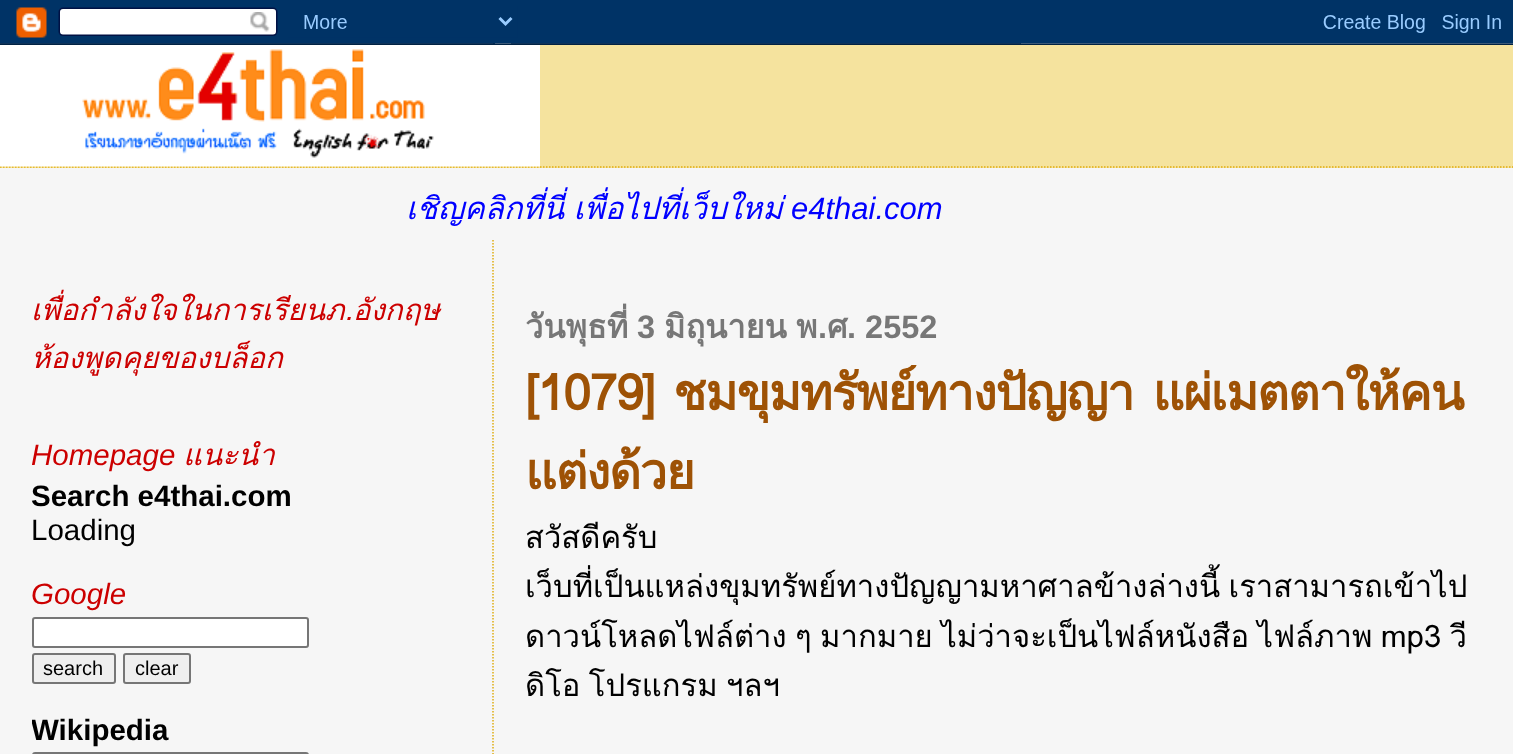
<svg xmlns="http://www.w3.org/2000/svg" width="1513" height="754">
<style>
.a{font:italic 31px Loma;fill:#00f}
.b{font:italic 31px Liberation Sans;fill:#00f}
.c{font:italic 29.5px Loma;fill:#c00}
.d{font:italic 29.5px Liberation Sans;fill:#c00}
.e{font:bold 29.5px Liberation Sans;fill:#000}
.f{font:29.5px Liberation Sans;fill:#000}
.g{font:20px Liberation Sans;fill:#000}
.h{font:bold 32.5px Loma;fill:#777}
.i{font:bold 32.5px Liberation Sans;fill:#777}
.j{font:bold 49.6px Loma;letter-spacing:-1.5px;fill:#9e5205}
.k{font:31px Loma;fill:#000}
</style>
<defs>
<clipPath id="clip1"><path d="M32 270h450v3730H32z"/></clipPath>
</defs>
<rect width="100%" height="100%" fill="#f6f6f6"/>
<image href="1.png" x="0" y="0" width="1513" height="45"/>
<path fill="#f5e39e" d="M0 45h1513v123H0z"/>
<path fill="none" stroke="#e0ad12" stroke-width="1.5" stroke-dasharray="1.5 1.5" d="M0 167h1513.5"/>
<image href="2.png" x="0" y="45" width="540" height="122"/>
<rect fill="#fff" stroke="#767676" stroke-width="2" x="33" y="618" width="275" height="29" rx="2"/>
<rect fill="#efefef" stroke="#767676" stroke-width="2" x="33" y="654" width="82" height="29" rx="2"/>
<rect fill="#efefef" stroke="#767676" stroke-width="2" x="124" y="654" width="66" height="29" rx="2"/>
<rect fill="none" stroke="#767676" stroke-width="2" x="33" y="753" width="275" height="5" rx="2"/>
<path fill="none" stroke="#e0ad12" stroke-width="1.5" stroke-dasharray="1.5 1.5" d="M493 240v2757"/>
<text class="a" x="406" y="219" word-spacing="-1">เชิญคลิกที่นี่ เพื่อไปที่เว็บใหม่</text>
<text class="b" x="791" y="219">e4thai.com</text>
<g clip-path="url(#clip1)">
<text class="c" x="31" y="320">เพื่อกำลังใจในการเรียนภ.อังกฤษ</text>
<text class="c" x="31" y="368">ห้องพูดคุยของบล็อก</text>
</g>
<text class="d" x="31" y="465">Homepage</text>
<text class="c" x="183" y="465">แนะนำ</text>
<text class="e" x="31" y="506">Search e4thai.com</text>
<text class="f" x="31" y="540">Loading</text>
<text class="d" x="31" y="604">Google</text>
<text class="g" x="43" y="675">search</text>
<text class="g" x="135" y="675">clear</text>
<g clip-path="url(#clip1)">
<text class="e" x="31" y="740">Wikipedia</text>
</g>
<text class="h" x="525" y="338">วันพุธที่</text>
<text class="i" x="637" y="338">3</text>
<text class="h" x="664" y="338">มิถุนายน</text>
<text class="h" x="796" y="338">พ</text>
<text class="i" x="818" y="338">.</text>
<text class="h" x="827" y="338">ศ</text>
<text class="i" x="847" y="338">. 2552</text>
<text class="j" x="525" y="410" word-spacing="4">[1079] ชมขุมทรัพย์ทางปัญญา แผ่เมตตาให้คน</text>
<text class="j" x="525" y="489">แต่งด้วย</text>
<text class="k" x="525" y="548">สวัสดีครับ</text>
<text class="k" x="525" y="597" word-spacing="-2">เว็บที่เป็นแหล่งขุมทรัพย์ทางปัญญามหาศาลข้างล่างนี้ เราสามารถเข้าไป</text>
<text class="k" x="525" y="647" word-spacing="-2">ดาวน์โหลดไฟล์ต่าง ๆ มากมาย ไม่ว่าจะเป็นไฟล์หนังสือ ไฟล์ภาพ mp3 วี</text>
<text class="k" x="525" y="696" word-spacing="-2">ดิโอ โปรแกรม ฯลฯ</text>
</svg>
